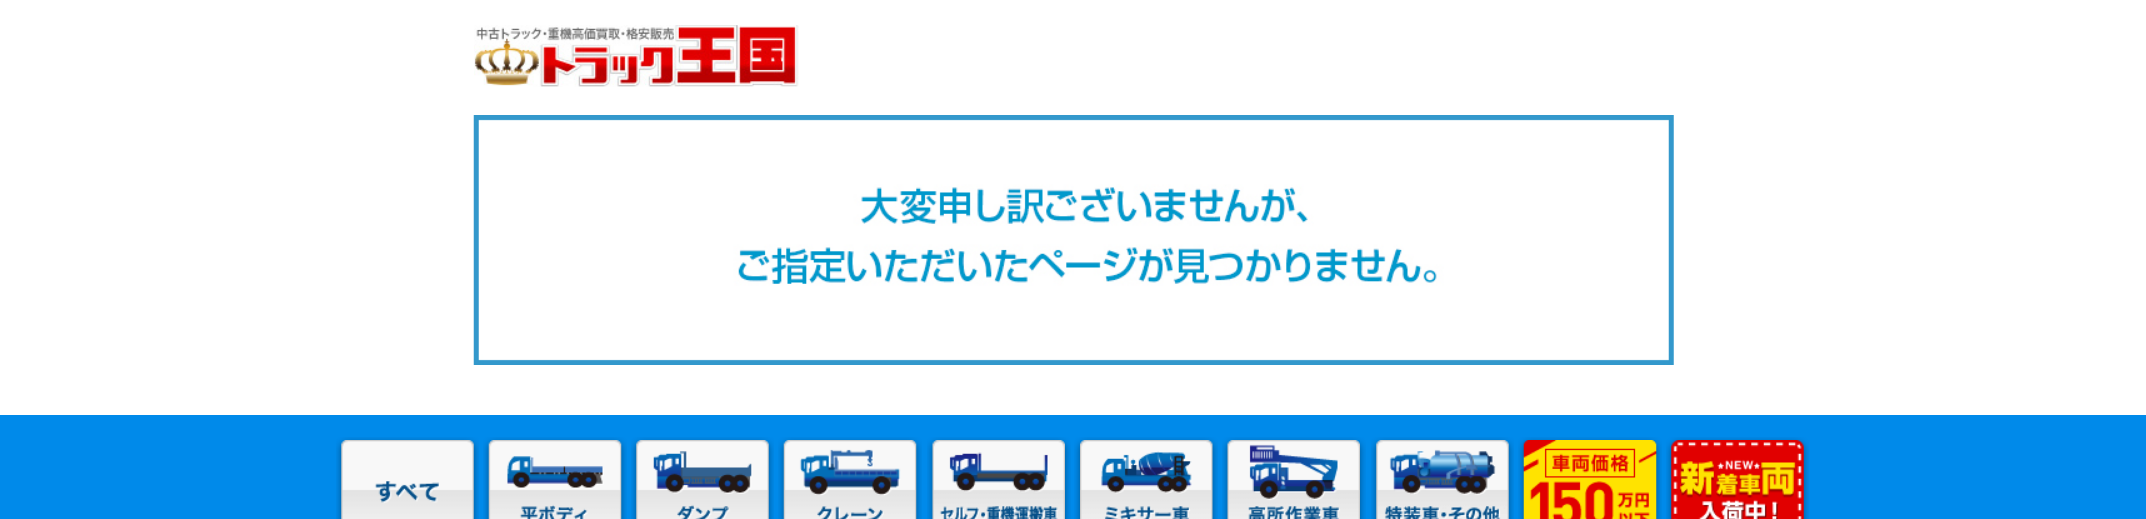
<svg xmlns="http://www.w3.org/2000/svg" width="2146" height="519">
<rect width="100%" height="100%" fill="#fff"/>
<image href="1.png" x="474" y="25" width="325" height="62"/>
<image href="2.png" x="473" y="115" width="1201" height="250"/>
<path fill="#008aea" d="M0 415h2146v104H0z"/>
<image href="3.png" x="336" y="437" width="143" height="82"/>
<image href="4.png" x="483" y="437" width="144" height="82"/>
<image href="5.png" x="631" y="437" width="143" height="82"/>
<image href="6.png" x="778" y="437" width="144" height="82"/>
<image href="7.png" x="927" y="437" width="144" height="82"/>
<image href="8.png" x="1074" y="437" width="144" height="82"/>
<image href="9.png" x="1222" y="437" width="144" height="82"/>
<image href="10.png" x="1371" y="437" width="143" height="82"/>
<image href="11.png" x="1518" y="437" width="144" height="82"/>
<image href="12.png" x="1666" y="437" width="143" height="82"/>
</svg>
